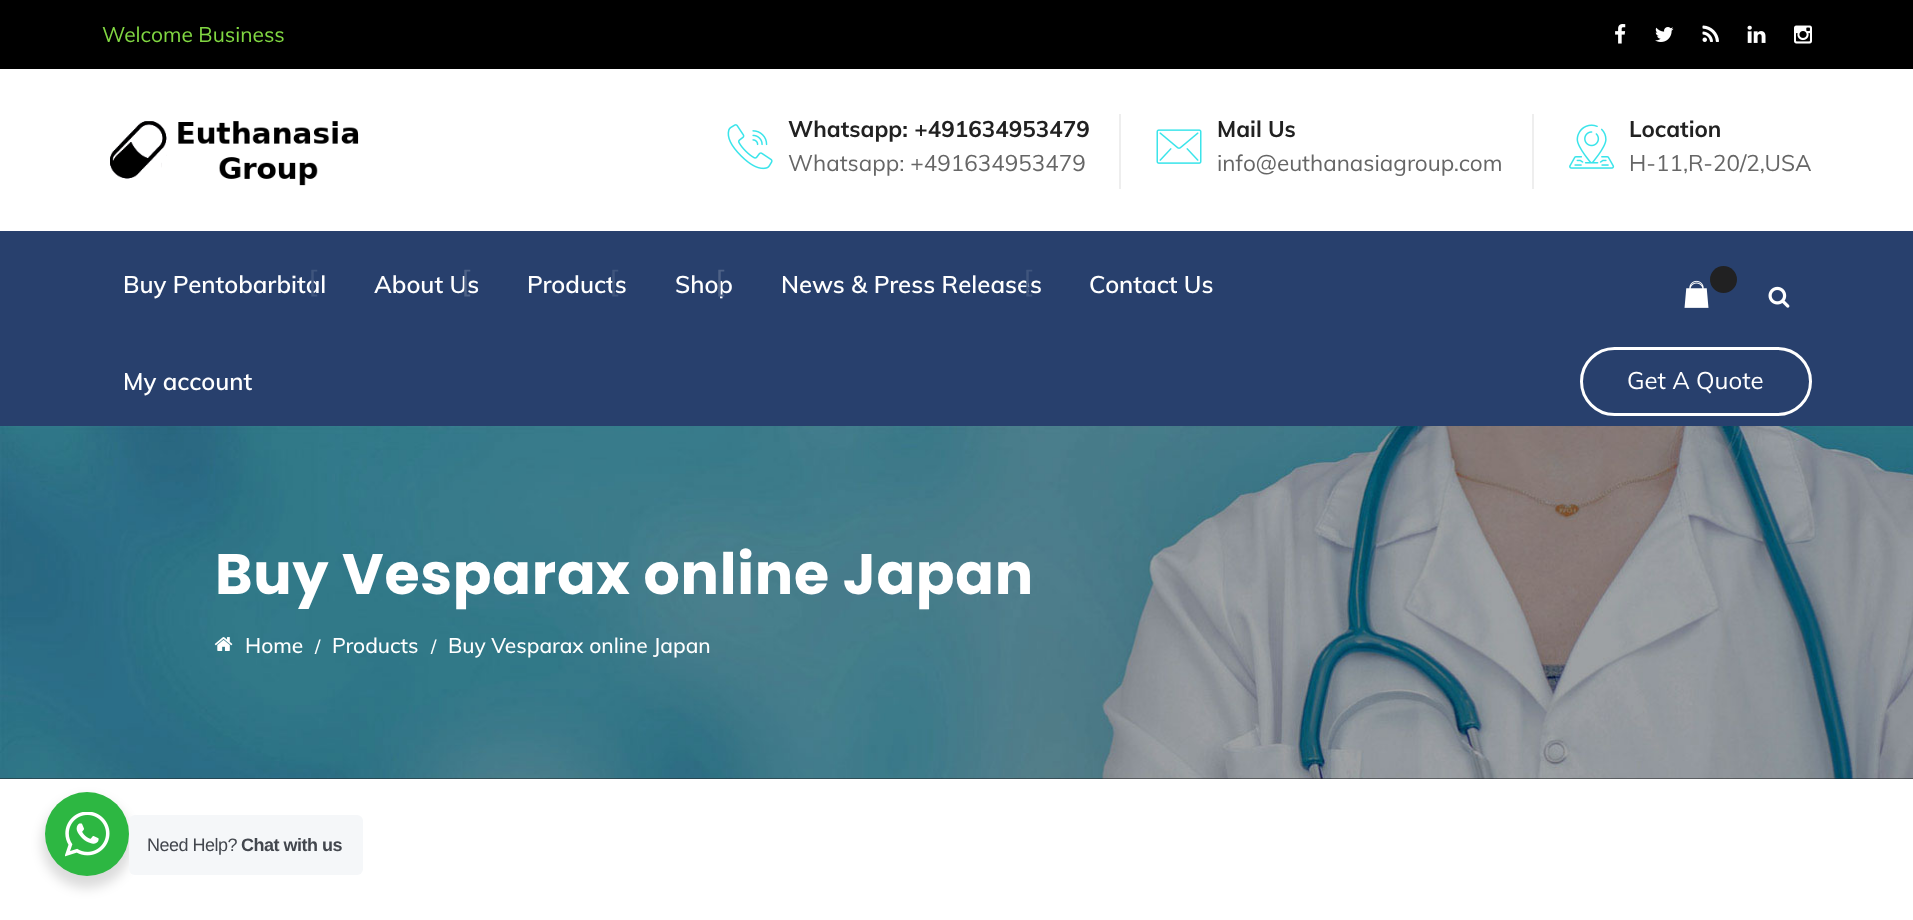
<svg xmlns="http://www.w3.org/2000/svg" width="1913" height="920">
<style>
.a{font:21px Muli;fill:#81d742}
.b{font:bold 22.5px Muli;fill:#212121}
.c{font:22.5px Muli;fill:#666}
.d{font:600 24px Muli;fill:#fff}
.e{font:30px Muli;fill:#3f557d}
.f{font:30px Muli;fill:#4e6287}
.g{font:24px Muli;fill:#fff}
.h{font:bold 57px Poppins;letter-spacing:0.75px;fill:#fff}
.i{font:500 21px Muli;fill:#fff}
.j{font:500 18px Muli;fill:#fff}
.k{font:18px Liberation Sans;letter-spacing:-0.5px;fill:#43474e}
.l{font:bold 18px Liberation Sans;letter-spacing:-0.5px;fill:#43474e}
</style>
<rect width="100%" height="100%" fill="#fff"/>
<path fill="#000" d="M0 0h1913v69H0z"/>
<image href="1.png" x="1615" y="24" width="11" height="20"/>
<image href="2.png" x="1655" y="27" width="19" height="15"/>
<image href="3.png" x="1702" y="25" width="17" height="17"/>
<image href="4.png" x="1747" y="25" width="19" height="18"/>
<image href="5.png" x="1794" y="25" width="18" height="19"/>
<image href="6.png" x="110" y="121" width="249" height="65"/>
<path fill="#eee" d="M1119 114h2v75H1119z"/>
<image href="7.png" x="727" y="124" width="46" height="46"/>
<path fill="#eee" d="M1532 114h2v75H1532z"/>
<image href="8.png" x="1156" y="129" width="46" height="35"/>
<image href="9.png" x="1569" y="124" width="46" height="45"/>
<path fill="#28406d" d="M0 231h1913v195H0z"/>
<image href="10.png" x="1684" y="280" width="25" height="28"/>
<circle fill="#212122" cx="1723.5" cy="279.5" r="13.5"/>
<image href="11.png" x="1768" y="286" width="22" height="22"/>
<rect fill="none" stroke="#fff" stroke-width="3" x="1581.5" y="348.5" width="229" height="66" rx="33"/>
<path fill="#212121" d="M0 778h1913v1H0z"/>
<image href="12.png" x="0" y="426" width="1913" height="353"/>
<image href="13.png" x="214" y="637" width="19" height="14"/>
<rect fill="#00000024" filter="blur(6px)" x="42" y="798" width="90" height="90" rx="45"/>
<circle fill="#2db742" cx="87" cy="834" r="42"/>
<image href="14.png" x="65" y="812" width="45" height="45"/>
<rect fill="#f5f7f9" x="129" y="815" width="234" height="60" rx="6"/>
<text class="a" x="102" y="42">Welcome Business</text>
<text class="b" x="788" y="137">Whatsapp: +491634953479</text>
<text class="c" x="788" y="171">Whatsapp: +491634953479</text>
<text class="b" x="1217" y="137">Mail Us</text>
<text class="c" x="1217" y="171">info@euthanasiagroup.com</text>
<text class="b" x="1629" y="137">Location</text>
<text class="c" x="1629" y="171">H-11,R-20/2,USA</text>
<text class="d" x="123" y="293">Buy Pentobarbital</text>
<text class="e" x="308" y="291">[</text>
<text class="d" x="374" y="293">About Us</text>
<text class="f" x="461" y="291">[</text>
<text class="d" x="527" y="293">Products</text>
<text class="e" x="609" y="291">[</text>
<text class="d" x="675" y="293">Shop</text>
<text class="f" x="715" y="291">[</text>
<text class="d" x="781" y="293">News &amp; Press Releases</text>
<text class="e" x="1023" y="291">[</text>
<text class="d" x="1089" y="293">Contact Us</text>
<text class="d" x="123" y="390">My account</text>
<text class="g" x="1627" y="389">Get A Quote</text>
<text class="h" x="215" y="594">Buy Vesparax online Japan</text>
<text class="i" x="245" y="653">Home</text>
<text class="j" x="315" y="653">/</text>
<text class="i" x="332" y="653">Products</text>
<text class="j" x="431" y="653">/</text>
<text class="i" x="448" y="653">Buy Vesparax online Japan</text>
<text class="k" x="147" y="851">Need Help?</text>
<text class="l" x="241" y="851">Chat with us</text>
</svg>
